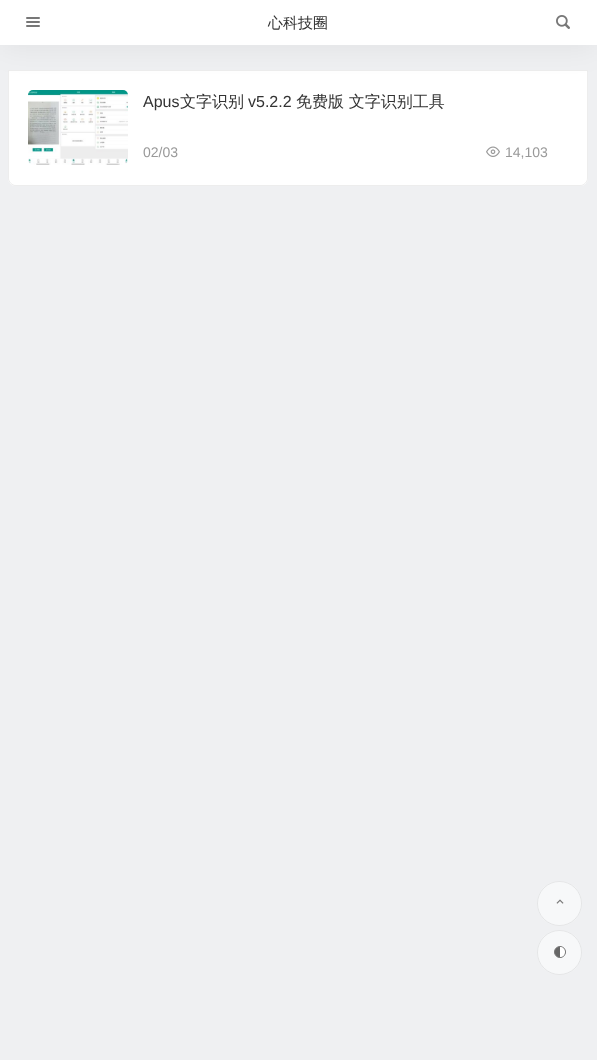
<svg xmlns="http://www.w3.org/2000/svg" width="597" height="1060">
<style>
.a{font:500 15px WenQuanYi Zen Hei;fill:#333}
.b{font:16px Liberation Sans;fill:#333}
.c{font:500 16px WenQuanYi Zen Hei;fill:#333}
.d{font:14px Liberation Sans;fill:#999}
</style>
<rect width="100%" height="100%" fill="#eff0f2"/>
<path fill="#fff" d="M8 70h580v108c0 4.5-3.5 8-8 8h-564c-4.5 0-8-3.5-8-8z"/>
<path fill="none" stroke="#00000012" d="M8.5 70.5h579v107.5c0 4-3.5 7.5-7.5 7.5h-564c-4 0-7.5-3.5-7.5-7.5z"/>
<image href="2.png" x="28" y="90" width="100" height="75"/>
<path fill="#0000000f" filter="blur(15px)" d="M0 3h597v45H0z"/>
<path fill="#fff" d="M0 0h597v45H0z"/>
<rect fill="#777" x="26" y="21" width="14" height="2" rx="1"/>
<rect fill="#777" x="26" y="17" width="14" height="2" rx="1"/>
<rect fill="#777" x="26" y="25" width="14" height="2" rx="1"/>
<image href="1.png" x="556" y="15" width="14" height="14"/>
<image href="3.png" x="486" y="146" width="14" height="11"/>
<circle fill="#f7f8f9" cx="559.5" cy="903.5" r="22.5"/>
<circle fill="none" stroke="#00000012" cx="559.5" cy="903.5" r="22"/>
<image href="4.png" x="556" y="899" width="8" height="5"/>
<circle fill="#f7f8f9" cx="559.5" cy="952.5" r="22.5"/>
<circle fill="none" stroke="#00000012" cx="559.5" cy="952.5" r="22"/>
<circle fill="#666" stroke="#777" cx="560" cy="952" r="5.5"/>
<path fill="#fff" d="M560 947c3 0 5 2 5 5c0 3-2 5-5 5z"/>
<text class="a" x="268" y="28">心科技圈</text>
<text class="b" x="143" y="107">Apus</text>
<text class="c" x="180" y="107">文字识别</text>
<text class="b" x="248" y="107">v5.2.2</text>
<text class="c" x="296" y="107">免费版 文字识别工具</text>
<text class="d" x="143" y="157">02/03</text>
<text class="d" x="505" y="157">14,103</text>
</svg>
